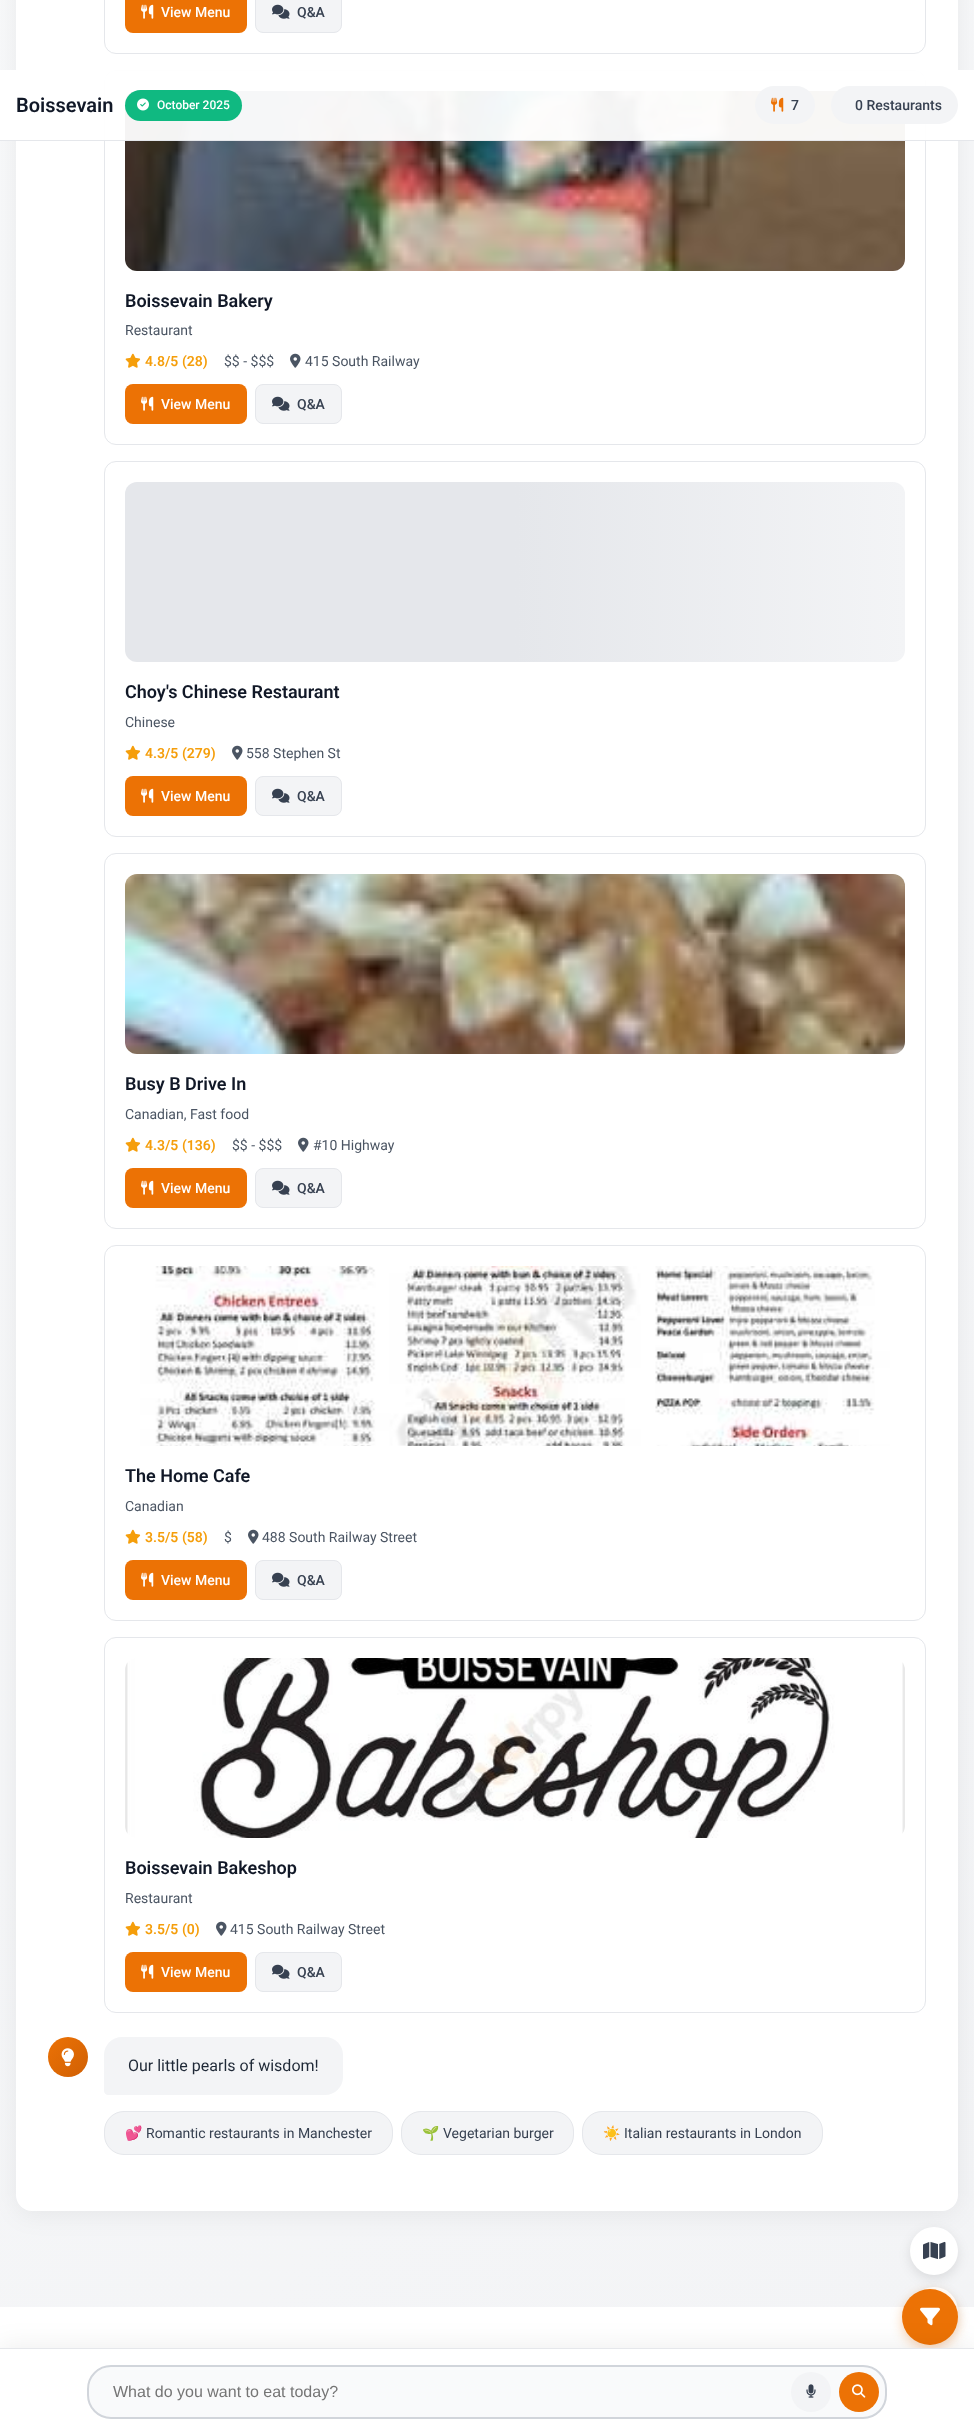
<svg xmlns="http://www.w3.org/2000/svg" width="974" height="2435">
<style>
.a{font:500 14px Roboto;fill:#fff}
.b{font:500 14px Roboto;fill:#374151}
.c{font:600 18px Roboto;fill:#111827}
.d{font:14px Roboto;fill:#4b5563}
.e{font:600 14px Roboto;fill:#f59e0b}
.f{font:16px Roboto;fill:#1f2937}
.g{font:14px Noto Color Emoji;fill:#374151}
.h{font:14px Roboto;fill:#374151}
.i{font:600 20px Roboto;fill:#111827}
.j{font:500 12px Roboto;fill:#fff}
.k{font:16px Liberation Sans;fill:#757575}
</style>
<defs>
<linearGradient id="g1" gradientUnits="userSpaceOnUse" x1="-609" y1="-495" x2="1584" y2="1697"><stop offset="0" stop-color="#f9fafb"/><stop offset="1" stop-color="#f3f4f6"/></linearGradient>
<linearGradient id="g2" gradientUnits="userSpaceOnUse" x1="125" y1="572" x2="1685" y2="572"><stop offset="0.25" stop-color="#e5e7eb"/><stop offset="0.5" stop-color="#f3f4f6"/><stop offset="0.75" stop-color="#e5e7eb"/></linearGradient>
<linearGradient id="g3" gradientUnits="userSpaceOnUse" x1="48" y1="2037" x2="88" y2="2077"><stop offset="0" stop-color="#ec7205"/><stop offset="1" stop-color="#d06004"/></linearGradient>
</defs>
<rect width="100%" height="100%" fill="#fff"/>
<path fill="url(#g1)" d="M0 0h974v2307H0z"/>
<rect fill="#0000000f" filter="blur(12px)" x="16" y="-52" width="942" height="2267" rx="16"/>
<rect fill="#fff" x="16" y="-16" width="942" height="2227" rx="16"/>
<rect fill="none" stroke="#e5e7eb" x="104.5" y="-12.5" width="821" height="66" rx="11.5"/>
<rect fill="#ec7205" x="125" y="-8" width="122" height="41" rx="8"/>
<image href="1.png" x="141" y="4" width="13" height="15"/>
<rect fill="#f3f4f6" stroke="#e5e7eb" x="255.5" y="-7.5" width="86" height="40" rx="7.5"/>
<image href="2.png" x="272" y="4" width="18" height="15"/>
<rect fill="none" stroke="#e5e7eb" x="104.5" y="70.5" width="821" height="374" rx="11.5"/>
<image href="3.png" x="125" y="91" width="780" height="180"/>
<image href="4.png" x="125" y="353" width="16" height="15"/>
<image href="5.png" x="290" y="353" width="11" height="15"/>
<rect fill="#ec7205" x="125" y="384" width="122" height="40" rx="8"/>
<image href="1.png" x="141" y="396" width="13" height="15"/>
<rect fill="#f3f4f6" stroke="#e5e7eb" x="255.5" y="384.5" width="86" height="39" rx="7.5"/>
<image href="2.png" x="272" y="396" width="18" height="15"/>
<rect fill="none" stroke="#e5e7eb" x="104.5" y="461.5" width="821" height="375" rx="11.5"/>
<rect fill="url(#g2)" x="125" y="482" width="780" height="180" rx="12"/>
<image href="4.png" x="125" y="745" width="16" height="15"/>
<image href="5.png" x="232" y="745" width="11" height="15"/>
<rect fill="#ec7205" x="125" y="776" width="122" height="40" rx="8"/>
<image href="1.png" x="141" y="788" width="13" height="15"/>
<rect fill="#f3f4f6" stroke="#e5e7eb" x="255.5" y="776.5" width="86" height="39" rx="7.5"/>
<image href="2.png" x="272" y="788" width="18" height="15"/>
<rect fill="none" stroke="#e5e7eb" x="104.5" y="853.5" width="821" height="375" rx="11.5"/>
<image href="6.png" x="125" y="874" width="780" height="180"/>
<image href="4.png" x="125" y="1137" width="16" height="15"/>
<image href="5.png" x="298" y="1137" width="11" height="15"/>
<rect fill="#ec7205" x="125" y="1168" width="122" height="40" rx="8"/>
<image href="1.png" x="141" y="1180" width="13" height="15"/>
<rect fill="#f3f4f6" stroke="#e5e7eb" x="255.5" y="1168.5" width="86" height="39" rx="7.5"/>
<image href="2.png" x="272" y="1180" width="18" height="15"/>
<rect fill="none" stroke="#e5e7eb" x="104.5" y="1245.5" width="821" height="375" rx="11.5"/>
<image href="7.png" x="125" y="1266" width="780" height="180"/>
<image href="4.png" x="125" y="1529" width="16" height="15"/>
<image href="5.png" x="248" y="1529" width="11" height="15"/>
<rect fill="#ec7205" x="125" y="1560" width="122" height="40" rx="8"/>
<image href="1.png" x="141" y="1572" width="13" height="15"/>
<rect fill="#f3f4f6" stroke="#e5e7eb" x="255.5" y="1560.5" width="86" height="39" rx="7.5"/>
<image href="2.png" x="272" y="1572" width="18" height="15"/>
<rect fill="none" stroke="#e5e7eb" x="104.5" y="1637.5" width="821" height="375" rx="11.5"/>
<image href="8.png" x="125" y="1658" width="780" height="180"/>
<image href="4.png" x="125" y="1921" width="16" height="15"/>
<image href="5.png" x="216" y="1921" width="11" height="15"/>
<rect fill="#ec7205" x="125" y="1952" width="122" height="40" rx="8"/>
<image href="1.png" x="141" y="1964" width="13" height="15"/>
<rect fill="#f3f4f6" stroke="#e5e7eb" x="255.5" y="1952.5" width="86" height="39" rx="7.5"/>
<image href="2.png" x="272" y="1964" width="18" height="15"/>
<circle fill="url(#g3)" cx="68" cy="2057" r="20"/>
<image href="9.png" x="61" y="2048" width="13" height="19"/>
<path fill="#f3f4f6" d="M122 2037h203c10 0 18 8 18 18v22c0 10-8 18-18 18h-217c-2 0-4-2-4-4v-36c0-10 8-18 18-18z"/>
<rect fill="#f3f4f6" stroke="#e5e7eb" x="104.5" y="2111.5" width="288" height="43" rx="19.5"/>
<rect fill="#f3f4f6" stroke="#e5e7eb" x="401.5" y="2111.5" width="172" height="43" rx="19.5"/>
<rect fill="#f3f4f6" stroke="#e5e7eb" x="582.5" y="2111.5" width="240" height="43" rx="19.5"/>
<path fill="#fffffff2" d="M0 70h974v70H0z"/>
<path fill="#e5e7eb" d="M0 140h974v1H0z"/>
<rect fill="#10b981" x="125" y="90" width="117" height="31" rx="15.5"/>
<image href="10.png" x="137" y="98" width="12" height="13"/>
<rect fill="#f3f4f6" x="755" y="86" width="60" height="38" rx="19"/>
<image href="11.png" x="771" y="97" width="13" height="15"/>
<rect fill="#f3f4f6" x="831" y="86" width="127" height="38" rx="19"/>
<rect fill="#0000001a" filter="blur(6px)" x="910" y="2231" width="48" height="48" rx="24"/>
<circle fill="#fff" cx="934" cy="2251" r="24"/>
<image href="12.png" x="923" y="2241" width="23" height="19"/>
<rect fill="#0000001a" filter="blur(6px)" x="910" y="2291" width="48" height="48" rx="24"/>
<circle fill="#fff" cx="934" cy="2311" r="24"/>
<rect fill="#ec72054d" filter="blur(6px)" x="902" y="2293" width="56" height="56" rx="28"/>
<circle fill="#ec7205" cx="930" cy="2317" r="28"/>
<image href="13.png" x="920" y="2307" width="20" height="19"/>
<path fill="#0000000f" filter="blur(12px)" d="M0 2344h974v87H0z"/>
<path fill="#fff" d="M0 2349h974v86H0z"/>
<path fill="#e5e7eb" d="M0 2348h974v1H0z"/>
<rect fill="#f9fafb" stroke="#d1d5db" stroke-width="2" x="88" y="2366" width="798" height="52" rx="23"/>
<circle fill="#f3f4f6" cx="811" cy="2392" r="20"/>
<image href="14.png" x="806" y="2384" width="10" height="14"/>
<circle fill="#ec7205" cx="859" cy="2392" r="20"/>
<image href="15.png" x="852" y="2384" width="14" height="14"/>
<text class="a" x="161" y="17">View Menu</text>
<text class="b" x="297" y="17">Q&amp;A</text>
<text class="c" x="125" y="307">Boissevain Bakery</text>
<text class="d" x="125" y="335">Restaurant</text>
<text class="e" x="145" y="366">4.8/5</text>
<text class="e" x="182" y="366">(28)</text>
<text class="d" x="224" y="366">$$ - $$$</text>
<text class="d" x="305" y="366">415 South Railway</text>
<text class="a" x="161" y="409">View Menu</text>
<text class="b" x="297" y="409">Q&amp;A</text>
<text class="c" x="125" y="698">Choy's Chinese Restaurant</text>
<text class="d" x="125" y="727">Chinese</text>
<text class="e" x="145" y="758">4.3/5</text>
<text class="e" x="182" y="758">(279)</text>
<text class="d" x="246" y="758">558 Stephen St</text>
<text class="a" x="161" y="801">View Menu</text>
<text class="b" x="297" y="801">Q&amp;A</text>
<text class="c" x="125" y="1090">Busy B Drive In</text>
<text class="d" x="125" y="1119">Canadian, Fast food</text>
<text class="e" x="145" y="1150">4.3/5</text>
<text class="e" x="182" y="1150">(136)</text>
<text class="d" x="232" y="1150">$$ - $$$</text>
<text class="d" x="313" y="1150">#10 Highway</text>
<text class="a" x="161" y="1193">View Menu</text>
<text class="b" x="297" y="1193">Q&amp;A</text>
<text class="c" x="125" y="1482">The Home Cafe</text>
<text class="d" x="125" y="1511">Canadian</text>
<text class="e" x="145" y="1542">3.5/5</text>
<text class="e" x="182" y="1542">(58)</text>
<text class="d" x="224" y="1542">$</text>
<text class="d" x="262" y="1542">488 South Railway Street</text>
<text class="a" x="161" y="1585">View Menu</text>
<text class="b" x="297" y="1585">Q&amp;A</text>
<text class="c" x="125" y="1874">Boissevain Bakeshop</text>
<text class="d" x="125" y="1903">Restaurant</text>
<text class="e" x="145" y="1934">3.5/5</text>
<text class="e" x="182" y="1934">(0)</text>
<text class="d" x="230" y="1934">415 South Railway Street</text>
<text class="a" x="161" y="1977">View Menu</text>
<text class="b" x="297" y="1977">Q&amp;A</text>
<text class="f" x="128" y="2071">Our little pearls of wisdom!</text>
<text class="g" x="125" y="2138">💕</text>
<text class="h" x="146" y="2138">Romantic restaurants in Manchester</text>
<text class="g" x="422" y="2138">🌱</text>
<text class="h" x="443" y="2138">Vegetarian burger</text>
<text class="g" x="603" y="2138">☀️</text>
<text class="h" x="624" y="2138">Italian restaurants in London</text>
<text class="i" x="16" y="112">Boissevain</text>
<text class="j" x="157" y="109">October 2025</text>
<text class="b" x="791" y="110">7</text>
<text class="b" x="855" y="110">0 Restaurants</text>
<text class="k" x="113" y="2397">What do you want to eat today?</text>
</svg>
